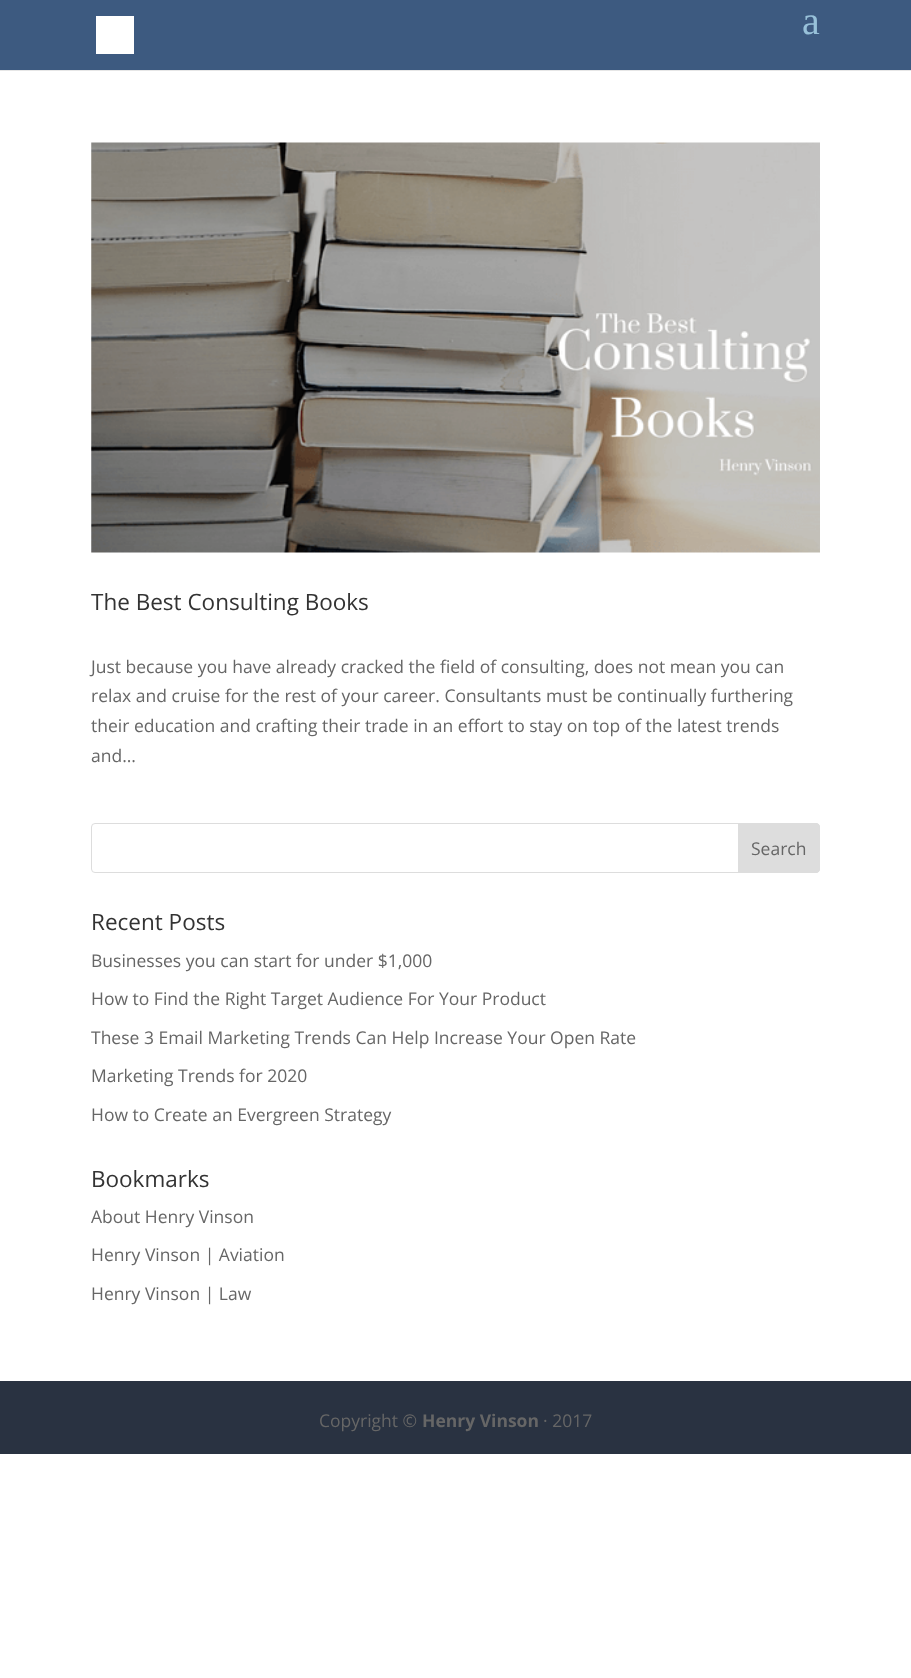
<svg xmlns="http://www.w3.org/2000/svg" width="911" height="1678">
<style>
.a{font:40px Liberation Serif;fill:#98c1d9}
.b{font:22.5px Open Sans;fill:#333}
.c{font:17.5px Open Sans;fill:#666}
.d{font:bold 17.5px Open Sans;fill:#666}
</style>
<rect width="100%" height="100%" fill="#fff"/>
<path fill="#e6e6e6" d="M0 70h911v1H0z"/>
<path fill="#3d5a80" d="M0 0h911v70H0z"/>
<path fill="#fff" d="M96 16h38v38H96z"/>
<image href="1.png" x="91" y="142" width="729" height="411"/>
<rect fill="none" stroke="#ddd" x="91.5" y="823.5" width="728" height="49" rx="3.5"/>
<path fill="#ddd" stroke="#ddd" d="M738.5 823.5h77.5c2 0 3.5 1.5 3.5 3.5v42c0 2-1.5 3.5-3.5 3.5h-77.5z"/>
<path fill="#293241" d="M0 1381h911v73H0z"/>
<text class="a" x="802" y="34">a</text>
<text class="b" x="91" y="610">The Best Consulting Books</text>
<text class="c" x="91" y="673">Just because you have already cracked the field of consulting, does not mean you can</text>
<text class="c" x="91" y="702">relax and cruise for the rest of your career. Consultants must be continually furthering</text>
<text class="c" x="91" y="732">their education and crafting their trade in an effort to stay on top of the latest trends</text>
<text class="c" x="91" y="762">and...</text>
<text class="c" x="751" y="855">Search</text>
<text class="b" x="91" y="930">Recent Posts</text>
<text class="c" x="91" y="967">Businesses you can start for under $1,000</text>
<text class="c" x="91" y="1005">How to Find the Right Target Audience For Your Product</text>
<text class="c" x="91" y="1044">These 3 Email Marketing Trends Can Help Increase Your Open Rate</text>
<text class="c" x="91" y="1082">Marketing Trends for 2020</text>
<text class="c" x="91" y="1121">How to Create an Evergreen Strategy</text>
<text class="b" x="91" y="1187">Bookmarks</text>
<text class="c" x="91" y="1223">About Henry Vinson</text>
<text class="c" x="91" y="1261">Henry Vinson | Aviation</text>
<text class="c" x="91" y="1300">Henry Vinson | Law</text>
<text class="c" x="319" y="1427">Copyright ©</text>
<text class="d" x="422" y="1427">Henry Vinson</text>
<text class="c" x="543" y="1427">· 2017</text>
</svg>
